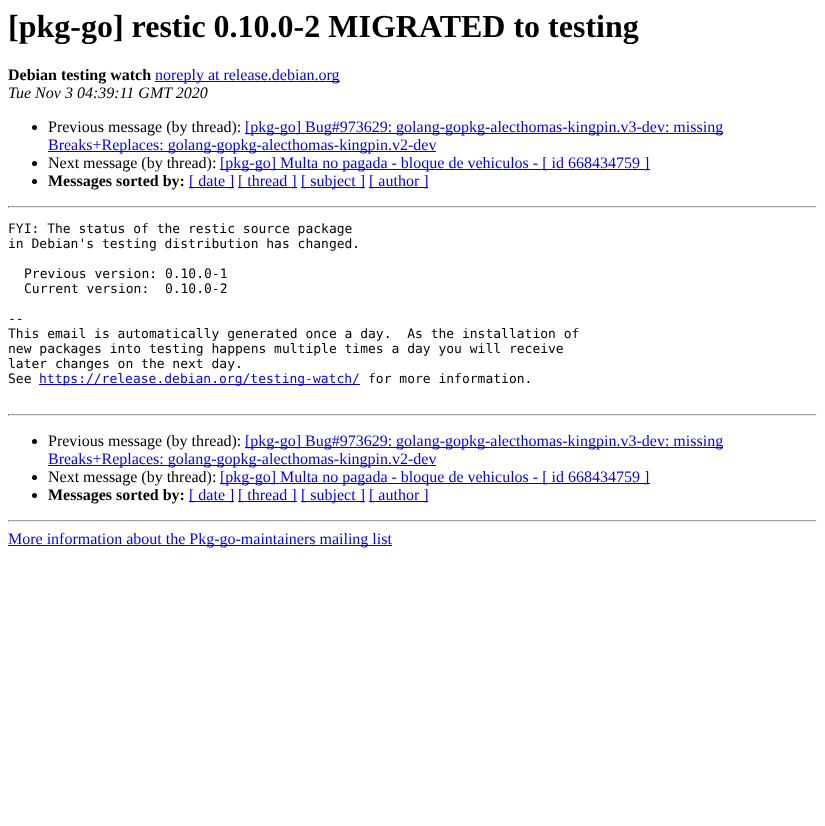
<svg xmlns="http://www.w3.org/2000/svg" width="825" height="826">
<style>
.a{font:bold 32px Liberation Serif;fill:#000}
.b{font:bold 16px Liberation Serif;fill:#000}
.c{font:16px Liberation Serif;fill:#00e}
.d{font:italic 16px Liberation Serif;fill:#000}
.e{font:16px Liberation Serif;fill:#000}
.f{font:13px DejaVu Sans Mono;fill:#000}
.g{font:13px DejaVu Sans Mono;fill:#00e}
</style>
<rect width="100%" height="100%" fill="#fff"/>
<path fill="#00e" d="M155 81h185v1H155z"/>
<circle fill="#000" cx="34.5" cy="127.5" r="2.5"/>
<path fill="#00e" d="M245 133h478v1H245z"/>
<path fill="#00e" d="M48 151h388v1H48z"/>
<circle fill="#000" cx="34.5" cy="163.5" r="2.5"/>
<path fill="#00e" d="M220 169h430v1H220z"/>
<circle fill="#000" cx="34.5" cy="181.5" r="2.5"/>
<path fill="#00e" d="M189 187h45v1H189z"/>
<path fill="#00e" d="M238 187h59v1H238z"/>
<path fill="#00e" d="M301 187h64v1H301z"/>
<path fill="#00e" d="M369 187h59v1H369z"/>
<path fill="#9f9f9f" d="M8 206h809v1H8z"/>
<path fill="#eee" d="M816 206h1v2H816z"/>
<path fill="#eee" d="M8 207h809v1H8z"/>
<path fill="#9f9f9f" d="M8 206h1v2H8z"/>
<path fill="#00e" d="M39 384h321v1H39z"/>
<path fill="#9f9f9f" d="M8 414h809v1H8z"/>
<path fill="#eee" d="M816 414h1v2H816z"/>
<path fill="#eee" d="M8 415h809v1H8z"/>
<path fill="#9f9f9f" d="M8 414h1v2H8z"/>
<circle fill="#000" cx="34.5" cy="441.5" r="2.5"/>
<path fill="#00e" d="M245 447h478v1H245z"/>
<path fill="#00e" d="M48 465h388v1H48z"/>
<circle fill="#000" cx="34.5" cy="477.5" r="2.5"/>
<path fill="#00e" d="M220 483h430v1H220z"/>
<circle fill="#000" cx="34.5" cy="495.5" r="2.5"/>
<path fill="#00e" d="M189 501h45v1H189z"/>
<path fill="#00e" d="M238 501h59v1H238z"/>
<path fill="#00e" d="M301 501h64v1H301z"/>
<path fill="#00e" d="M369 501h59v1H369z"/>
<path fill="#9f9f9f" d="M8 520h809v1H8z"/>
<path fill="#eee" d="M816 520h1v2H816z"/>
<path fill="#eee" d="M8 521h809v1H8z"/>
<path fill="#9f9f9f" d="M8 520h1v2H8z"/>
<path fill="#00e" d="M8 545h384v1H8z"/>
<text class="a" x="8" y="37">[pkg-go] restic 0.10.0-2 MIGRATED to testing</text>
<text class="b" x="8" y="80">Debian testing watch</text>
<text class="c" x="155" y="80">noreply at release.debian.org</text>
<text class="d" x="8" y="98">Tue Nov 3 04:39:11 GMT 2020</text>
<text class="e" x="48" y="132">Previous message (by thread):</text>
<text class="c" x="245" y="132">[pkg-go] Bug#973629: golang-gopkg-alecthomas-kingpin.v3-dev: missing</text>
<text class="c" x="48" y="150">Breaks+Replaces: golang-gopkg-alecthomas-kingpin.v2-dev</text>
<text class="e" x="48" y="168">Next message (by thread):</text>
<text class="c" x="220" y="168">[pkg-go] Multa no pagada - bloque de vehiculos - [ id 668434759 ]</text>
<text class="b" x="48" y="186">Messages sorted by:</text>
<text class="c" x="189" y="186">[ date ]</text>
<text class="c" x="238" y="186">[ thread ]</text>
<text class="c" x="301" y="186">[ subject ]</text>
<text class="c" x="369" y="186">[ author ]</text>
<text class="f" x="8" y="233">FYI: The status of the restic source package</text>
<text class="f" x="8" y="248">in Debian's testing distribution has changed.</text>
<text class="f" x="24" y="278">Previous version: 0.10.0-1</text>
<text class="f" xml:space="preserve" x="24" y="293">Current version:  0.10.0-2</text>
<text class="f" x="8" y="323">--</text>
<text class="f" xml:space="preserve" x="8" y="338">This email is automatically generated once a day.  As the installation of</text>
<text class="f" x="8" y="353">new packages into testing happens multiple times a day you will receive</text>
<text class="f" x="8" y="368">later changes on the next day.</text>
<text class="f" x="8" y="383">See</text>
<text class="g" x="39" y="383">https://release.debian.org/testing-watch/</text>
<text class="f" x="368" y="383">for more information.</text>
<text class="e" x="48" y="446">Previous message (by thread):</text>
<text class="c" x="245" y="446">[pkg-go] Bug#973629: golang-gopkg-alecthomas-kingpin.v3-dev: missing</text>
<text class="c" x="48" y="464">Breaks+Replaces: golang-gopkg-alecthomas-kingpin.v2-dev</text>
<text class="e" x="48" y="482">Next message (by thread):</text>
<text class="c" x="220" y="482">[pkg-go] Multa no pagada - bloque de vehiculos - [ id 668434759 ]</text>
<text class="b" x="48" y="500">Messages sorted by:</text>
<text class="c" x="189" y="500">[ date ]</text>
<text class="c" x="238" y="500">[ thread ]</text>
<text class="c" x="301" y="500">[ subject ]</text>
<text class="c" x="369" y="500">[ author ]</text>
<text class="c" x="8" y="544">More information about the Pkg-go-maintainers mailing list</text>
</svg>
